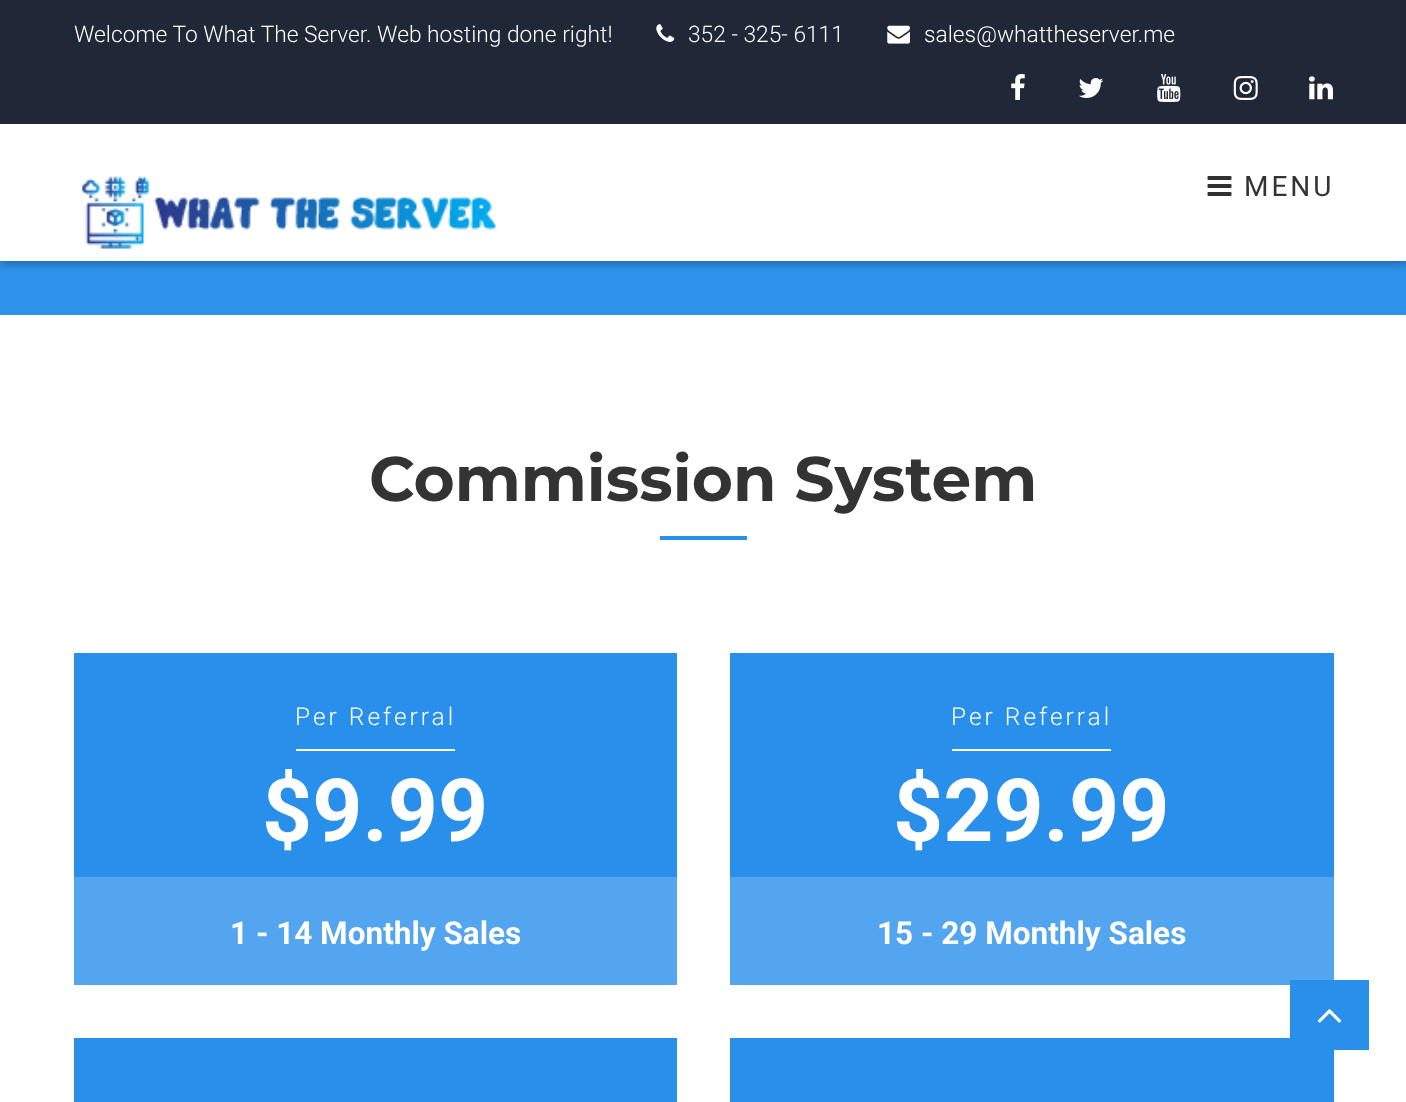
<svg xmlns="http://www.w3.org/2000/svg" width="1406" height="1102">
<style>
.a{font:300 22.75px Roboto;fill:#fff}
.b{font:28px Roboto;letter-spacing:3px;fill:#333}
.c{font:bold 63px Montserrat;fill:#333}
.d{font:300 24.5px Roboto;letter-spacing:3px;fill:#fff}
.e{font:bold 87.5px Roboto;fill:#fff}
.f{font:bold 31.5px Roboto;fill:#fff}
</style>
<rect width="100%" height="100%" fill="#fff"/>
<path fill="#2e92ec" d="M0 261h1406v54H0z"/>
<path fill="#00000059" filter="blur(5px)" d="M0 126h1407v137H0z"/>
<path fill="#202736" d="M0 0h1406v124H0z"/>
<image href="1.png" x="656" y="24" width="19" height="18"/>
<image href="2.png" x="887" y="25" width="23" height="19"/>
<image href="3.png" x="1011" y="74" width="14" height="26"/>
<image href="4.png" x="1078" y="78" width="26" height="20"/>
<image href="5.png" x="1157" y="74" width="24" height="28"/>
<image href="6.png" x="1233" y="76" width="25" height="24"/>
<image href="7.png" x="1309" y="76" width="24" height="24"/>
<path fill="#fff" d="M0 124h1406v137H0z"/>
<image href="8.png" x="81" y="176" width="415" height="73"/>
<image href="9.png" x="1207" y="176" width="25" height="20"/>
<path fill="#288feb" d="M660 536h87v4H660z"/>
<path fill="#288feb" d="M74 653h603v224H74z"/>
<path fill="#53a5ef" d="M74 877h603v108H74z"/>
<path fill="#fff" d="M296 749h159v2H296z"/>
<path fill="#288feb" d="M730 653h604v224H730z"/>
<path fill="#53a5ef" d="M730 877h604v108H730z"/>
<path fill="#fff" d="M952 749h159v2H952z"/>
<path fill="#288feb" d="M74 1038h603v64H74z"/>
<path fill="#288feb" d="M730 1038h604v64H730z"/>
<path fill="#288feb" d="M1290 980h79v70H1290z"/>
<image href="10.png" x="1317" y="1009" width="25" height="14"/>
<text class="a" x="74" y="42">Welcome To What The Server. Web hosting done right!</text>
<text class="a" x="688" y="42">352 - 325- 6111</text>
<text class="a" x="924" y="42">sales@whattheserver.me</text>
<text class="b" x="1244" y="196">MENU</text>
<text class="c" x="369" y="501">Commission System</text>
<text class="d" x="295" y="725">Per Referral</text>
<text class="e" x="262" y="841">$9.99</text>
<text class="f" x="230" y="944">1 - 14 Monthly Sales</text>
<text class="d" x="951" y="725">Per Referral</text>
<text class="e" x="893" y="841">$29.99</text>
<text class="f" x="877" y="944">15 - 29 Monthly Sales</text>
</svg>
